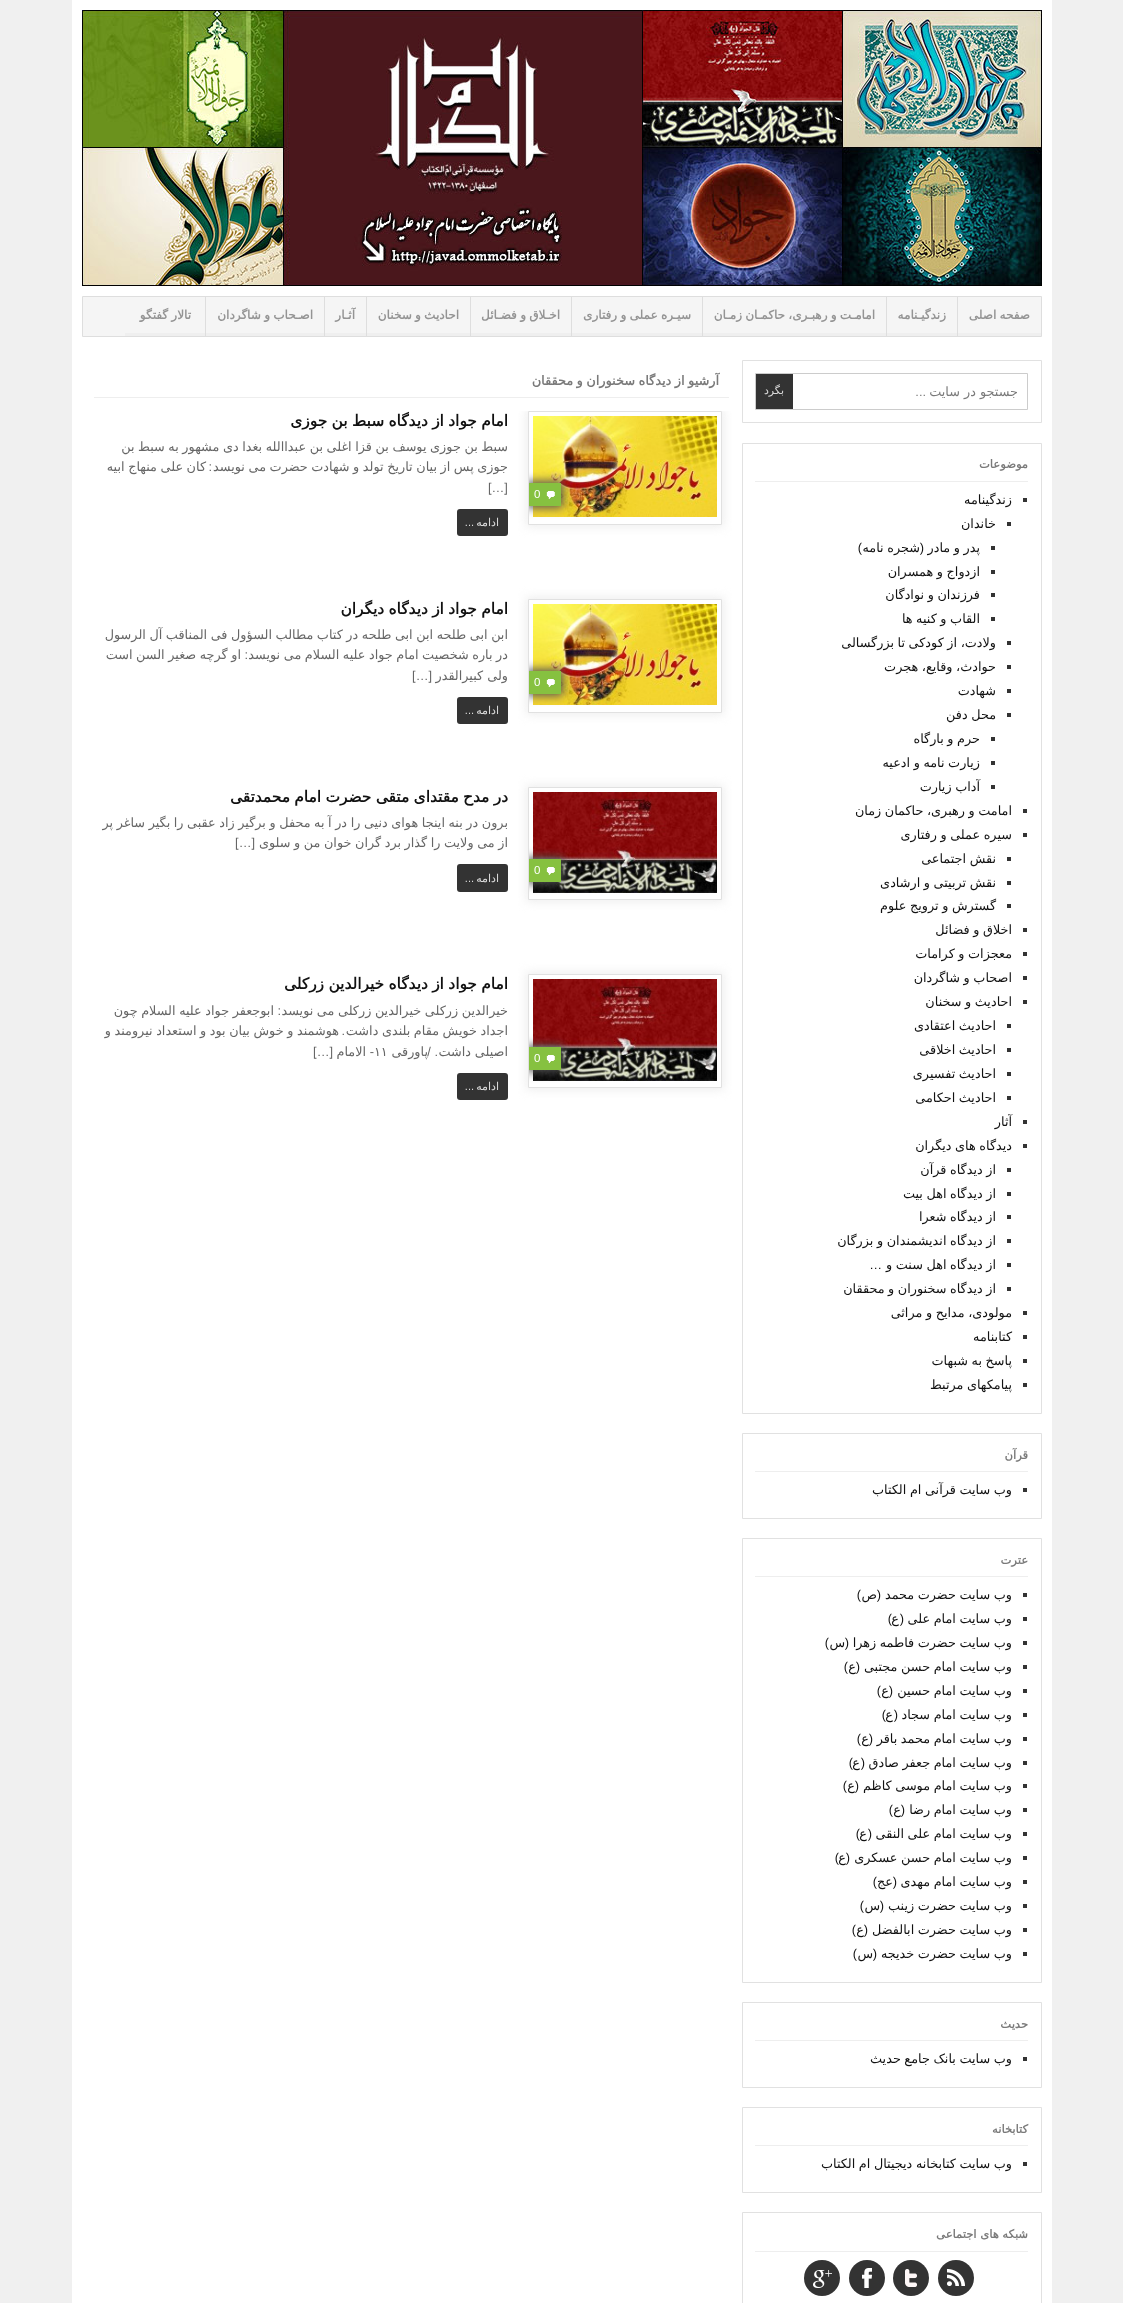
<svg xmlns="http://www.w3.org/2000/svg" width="1123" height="2303">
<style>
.a{font:bold 12px DejaVu Sans;direction:rtl;fill:#949494}
.b{font:12.8px DejaVu Sans;direction:rtl;fill:#7a7a7a}
.c{font:12.8px Liberation Sans;direction:rtl;fill:#7a7a7a}
.d{font:11px DejaVu Sans;direction:rtl;fill:#ddd}
.e{font:bold 11.5px DejaVu Sans;direction:rtl;fill:#7a7a7a}
.f{font:12.8px DejaVu Sans;direction:rtl;fill:#111}
.g{font:12.8px Liberation Sans;direction:rtl;fill:#111}
.h{font:bold 12.8px DejaVu Sans;direction:rtl;fill:#7a7a7a}
.i{font:bold 15.4px DejaVu Sans;direction:rtl;fill:#111}
.j{font:11.5px Liberation Sans;fill:#fff}
.k{font:12.8px DejaVu Sans;direction:rtl;fill:#666}
.l{font:12.8px Liberation Sans;direction:rtl;fill:#666}
.m{font:12.8px Liberation Sans;fill:#666}
.n{font:11px Liberation Sans;direction:rtl;fill:#ddd}
.o{font:12.8px DejaVu Sans;fill:#666}
</style>
<defs>
<clipPath id="clip1"><path d="M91 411h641v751H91z"/></clipPath>
<clipPath id="clip2"><path d="M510 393h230v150h-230zm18 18h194v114h-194z" clip-rule="evenodd"/></clipPath>
<clipPath id="clip3"><path d="M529 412h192v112H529z"/></clipPath>
<clipPath id="clip4"><path d="M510 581h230v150h-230zm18 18h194v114h-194z" clip-rule="evenodd"/></clipPath>
<clipPath id="clip5"><path d="M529 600h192v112H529z"/></clipPath>
<clipPath id="clip6"><path d="M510 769h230v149h-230zm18 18h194v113h-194z" clip-rule="evenodd"/></clipPath>
<clipPath id="clip7"><path d="M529 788h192v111H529z"/></clipPath>
<clipPath id="clip8"><path d="M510 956h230v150h-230zm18 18h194v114h-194z" clip-rule="evenodd"/></clipPath>
<clipPath id="clip9"><path d="M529 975h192v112H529z"/></clipPath>
</defs>
<rect width="100%" height="100%" fill="#f0f0f0"/>
<path fill="#fff" d="M72 0h980v2303H72z"/>
<image href="1.png" x="82" y="10" width="960" height="276"/>
<path fill="#f5f5f5" stroke="#dedede" d="M82.5 296.5h959v40H82.5z"/>
<path fill="#dedede" d="M957 297h1v39H957z"/>
<path fill="#efefef" d="M958 333h83v3H958z"/>
<path fill="#dedede" d="M886 297h1v39H886z"/>
<path fill="#efefef" d="M887 333h70v3H887z"/>
<path fill="#dedede" d="M702 297h1v39H702z"/>
<path fill="#efefef" d="M703 333h183v3H703z"/>
<path fill="#dedede" d="M571 297h1v39H571z"/>
<path fill="#efefef" d="M572 333h130v3H572z"/>
<path fill="#dedede" d="M470 297h1v39H470z"/>
<path fill="#efefef" d="M471 333h100v3H471z"/>
<path fill="#dedede" d="M366 297h1v39H366z"/>
<path fill="#efefef" d="M367 333h103v3H367z"/>
<path fill="#dedede" d="M324 297h1v39H324z"/>
<path fill="#efefef" d="M325 333h41v3H325z"/>
<path fill="#dedede" d="M205 297h1v39H205z"/>
<path fill="#efefef" d="M206 333h118v3H206z"/>
<path fill="#efefef" d="M125 333h80v3H125z"/>
<path fill="none" stroke="#e1e1e1" d="M742.5 360.5h299v62H742.5z"/>
<path fill="none" stroke="#ccc" d="M755.5 373.5h272v36H755.5z"/>
<path fill="#333" d="M756 374h37v35H756z"/>
<path fill="none" stroke="#e1e1e1" d="M742.5 443.5h299v970H742.5z"/>
<path fill="#eee" d="M755 481h273v1H755z"/>
<path fill="#333" d="M1023 498h4v4H1023z"/>
<path fill="#333" d="M1007 522h4v4H1007z"/>
<path fill="#333" d="M991 546h4v4H991z"/>
<path fill="#333" d="M991 570h4v4H991z"/>
<path fill="#333" d="M991 593h4v4H991z"/>
<path fill="#333" d="M991 617h4v4H991z"/>
<path fill="#333" d="M1007 641h4v4H1007z"/>
<path fill="#333" d="M1007 665h4v4H1007z"/>
<path fill="#333" d="M1007 689h4v4H1007z"/>
<path fill="#333" d="M1007 713h4v4H1007z"/>
<path fill="#333" d="M991 737h4v4H991z"/>
<path fill="#333" d="M991 761h4v4H991z"/>
<path fill="#333" d="M991 785h4v4H991z"/>
<path fill="#333" d="M1023 809h4v4H1023z"/>
<path fill="#333" d="M1023 833h4v4H1023z"/>
<path fill="#333" d="M1007 857h4v4H1007z"/>
<path fill="#333" d="M1007 881h4v4H1007z"/>
<path fill="#333" d="M1007 904h4v4H1007z"/>
<path fill="#333" d="M1023 928h4v4H1023z"/>
<path fill="#333" d="M1023 952h4v4H1023z"/>
<path fill="#333" d="M1023 976h4v4H1023z"/>
<path fill="#333" d="M1023 1000h4v4H1023z"/>
<path fill="#333" d="M1007 1024h4v4H1007z"/>
<path fill="#333" d="M1007 1048h4v4H1007z"/>
<path fill="#333" d="M1007 1072h4v4H1007z"/>
<path fill="#333" d="M1007 1096h4v4H1007z"/>
<path fill="#333" d="M1023 1120h4v4H1023z"/>
<path fill="#333" d="M1023 1144h4v4H1023z"/>
<path fill="#333" d="M1007 1168h4v4H1007z"/>
<path fill="#333" d="M1007 1192h4v4H1007z"/>
<path fill="#333" d="M1007 1215h4v4H1007z"/>
<path fill="#333" d="M1007 1239h4v4H1007z"/>
<path fill="#333" d="M1007 1263h4v4H1007z"/>
<path fill="#333" d="M1007 1287h4v4H1007z"/>
<path fill="#333" d="M1023 1311h4v4H1023z"/>
<path fill="#333" d="M1023 1335h4v4H1023z"/>
<path fill="#333" d="M1023 1359h4v4H1023z"/>
<path fill="#333" d="M1023 1383h4v4H1023z"/>
<path fill="none" stroke="#e1e1e1" d="M742.5 1433.5h299v85H742.5z"/>
<path fill="#eee" d="M755 1471h273v1H755z"/>
<path fill="#333" d="M1023 1488h4v4H1023z"/>
<path fill="none" stroke="#e1e1e1" d="M742.5 1538.5h299v444H742.5z"/>
<path fill="#eee" d="M755 1576h273v1H755z"/>
<path fill="#333" d="M1023 1593h4v4H1023z"/>
<path fill="#333" d="M1023 1617h4v4H1023z"/>
<path fill="#333" d="M1023 1641h4v4H1023z"/>
<path fill="#333" d="M1023 1665h4v4H1023z"/>
<path fill="#333" d="M1023 1689h4v4H1023z"/>
<path fill="#333" d="M1023 1713h4v4H1023z"/>
<path fill="#333" d="M1023 1737h4v4H1023z"/>
<path fill="#333" d="M1023 1761h4v4H1023z"/>
<path fill="#333" d="M1023 1784h4v4H1023z"/>
<path fill="#333" d="M1023 1808h4v4H1023z"/>
<path fill="#333" d="M1023 1832h4v4H1023z"/>
<path fill="#333" d="M1023 1856h4v4H1023z"/>
<path fill="#333" d="M1023 1880h4v4H1023z"/>
<path fill="#333" d="M1023 1904h4v4H1023z"/>
<path fill="#333" d="M1023 1928h4v4H1023z"/>
<path fill="#333" d="M1023 1952h4v4H1023z"/>
<path fill="none" stroke="#e1e1e1" d="M742.5 2002.5h299v85H742.5z"/>
<path fill="#eee" d="M755 2040h273v1H755z"/>
<path fill="#333" d="M1023 2057h4v4H1023z"/>
<path fill="none" stroke="#e1e1e1" d="M742.5 2107.5h299v85H742.5z"/>
<path fill="#eee" d="M755 2145h273v1H755z"/>
<path fill="#333" d="M1023 2162h4v4H1023z"/>
<path fill="none" stroke="#e1e1e1" d="M742.5 2212.5h299v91H742.5z"/>
<path fill="#eee" d="M755 2251h273v1H755z"/>
<circle fill="#333" cx="956" cy="2278" r="18"/>
<image href="2.png" x="947" y="2269" width="18" height="17"/>
<circle fill="#333" cx="911" cy="2278" r="18"/>
<image href="3.png" x="905" y="2269" width="12" height="18"/>
<circle fill="#333" cx="867" cy="2278" r="18"/>
<image href="4.png" x="862" y="2268" width="10" height="20"/>
<circle fill="#333" cx="822" cy="2278" r="18"/>
<image href="5.png" x="813" y="2270" width="19" height="18"/>
<path fill="#eee" d="M94 397h635v1H94z"/>
<g clip-path="url(#clip1)">
<g clip-path="url(#clip2)">
<path fill="#eee" filter="blur(5px)" d="M526 409h198v118H526z"/>
</g>
</g>
<path fill="none" stroke="#e1e1e1" d="M528.5 411.5h193v113H528.5z"/>
<image href="6.png" x="533" y="416" width="184" height="101"/>
<g clip-path="url(#clip3)">
<path fill="#555" filter="blur(5px)" d="M527 481h36v27H527z"/>
</g>
<path fill="#86c140" d="M529 483h32v23H529z"/>
<image href="7.png" x="546" y="491" width="9" height="8"/>
<rect fill="#333" x="457" y="509" width="51" height="27" rx="3"/>
<g clip-path="url(#clip1)">
<g clip-path="url(#clip4)">
<path fill="#eee" filter="blur(5px)" d="M526 597h198v118H526z"/>
</g>
</g>
<path fill="none" stroke="#e1e1e1" d="M528.5 599.5h193v113H528.5z"/>
<image href="6.png" x="533" y="604" width="184" height="101"/>
<g clip-path="url(#clip5)">
<path fill="#555" filter="blur(5px)" d="M527 669h36v27H527z"/>
</g>
<path fill="#86c140" d="M529 671h32v23H529z"/>
<image href="7.png" x="546" y="679" width="9" height="8"/>
<rect fill="#333" x="457" y="697" width="51" height="27" rx="3"/>
<g clip-path="url(#clip1)">
<g clip-path="url(#clip6)">
<path fill="#eee" filter="blur(5px)" d="M526 785h198v117H526z"/>
</g>
</g>
<path fill="none" stroke="#e1e1e1" d="M528.5 787.5h193v112H528.5z"/>
<image href="8.png" x="533" y="792" width="184" height="101"/>
<g clip-path="url(#clip7)">
<path fill="#555" filter="blur(5px)" d="M527 857h36v27H527z"/>
</g>
<path fill="#86c140" d="M529 859h32v23H529z"/>
<image href="7.png" x="546" y="867" width="9" height="8"/>
<rect fill="#333" x="457" y="864" width="51" height="28" rx="3"/>
<g clip-path="url(#clip1)">
<g clip-path="url(#clip8)">
<path fill="#eee" filter="blur(5px)" d="M526 972h198v118H526z"/>
</g>
</g>
<path fill="none" stroke="#e1e1e1" d="M528.5 974.5h193v113H528.5z"/>
<image href="9.png" x="533" y="979" width="184" height="102"/>
<g clip-path="url(#clip9)">
<path fill="#555" filter="blur(5px)" d="M527 1045h36v27H527z"/>
</g>
<path fill="#86c140" d="M529 1047h32v23H529z"/>
<image href="7.png" x="546" y="1055" width="9" height="8"/>
<rect fill="#333" x="457" y="1073" width="51" height="27" rx="3"/>
<text class="a" x="1030" y="319" word-spacing="-0.5">صفحه اصلی</text>
<text class="a" x="946" y="319">زندگیـنامه</text>
<text class="a" x="875" y="319" word-spacing="-0.5">امامـت و رهبـری، حاکمـان زمـان</text>
<text class="a" x="691" y="319" word-spacing="-0.5">سیـره عملی و رفتاری</text>
<text class="a" x="560" y="319" word-spacing="-0.5">اخـلاق و فضـائل</text>
<text class="a" x="459" y="319" word-spacing="-0.5">احادیث و سخنان</text>
<text class="a" x="355" y="319">آثـار</text>
<text class="a" x="313" y="319" word-spacing="-0.5">اصـحاب و شاگردان</text>
<text class="a" x="191" y="319" word-spacing="-0.5">تالار گفتگو</text>
<text class="b" x="1018" y="396">جستجو در سایت</text>
<text class="c" x="926" y="396">...</text>
<text class="d" x="784" y="394">بگرد</text>
<text class="e" x="1028" y="468">موضوعات</text>
<text class="f" x="1012" y="504">زندگینامه</text>
<text class="f" x="996" y="528">خاندان</text>
<text class="f" x="980" y="552" word-spacing="-0.5">پدر و مادر</text>
<text class="g" x="924" y="552">(</text>
<text class="f" x="920" y="552" word-spacing="-0.5">شجره نامه</text>
<text class="g" x="862" y="552">)</text>
<text class="f" x="980" y="576" word-spacing="-0.5">ازدواج و همسران</text>
<text class="f" x="980" y="599" word-spacing="-0.5">فرزندان و نوادگان</text>
<text class="f" x="980" y="623" word-spacing="-0.5">القاب و کنیه ها</text>
<text class="f" x="996" y="647" word-spacing="-0.5">ولادت، از کودکی تا بزرگسالی</text>
<text class="f" x="996" y="671" word-spacing="-0.5">حوادث، وقایع، هجرت</text>
<text class="f" x="996" y="695">شهادت</text>
<text class="f" x="996" y="719" word-spacing="-0.5">محل دفن</text>
<text class="f" x="980" y="743" word-spacing="-0.5">حرم و بارگاه</text>
<text class="f" x="980" y="767" word-spacing="-0.5">زیارت نامه و ادعیه</text>
<text class="f" x="980" y="791" word-spacing="-0.5">آداب زیارت</text>
<text class="f" x="1012" y="815" word-spacing="-0.5">امامت و رهبری، حاکمان زمان</text>
<text class="f" x="1012" y="839" word-spacing="-0.5">سیره عملی و رفتاری</text>
<text class="f" x="996" y="863" word-spacing="-0.5">نقش اجتماعی</text>
<text class="f" x="996" y="887" word-spacing="-0.5">نقش تربیتی و ارشادی</text>
<text class="f" x="996" y="910" word-spacing="-0.5">گسترش و ترویج علوم</text>
<text class="f" x="1012" y="934" word-spacing="-0.5">اخلاق و فضائل</text>
<text class="f" x="1012" y="958" word-spacing="-0.5">معجزات و کرامات</text>
<text class="f" x="1012" y="982" word-spacing="-0.5">اصحاب و شاگردان</text>
<text class="f" x="1012" y="1006" word-spacing="-0.5">احادیث و سخنان</text>
<text class="f" x="996" y="1030" word-spacing="-0.5">احادیث اعتقادی</text>
<text class="f" x="996" y="1054" word-spacing="-0.5">احادیث اخلاقی</text>
<text class="f" x="996" y="1078" word-spacing="-0.5">احادیث تفسیری</text>
<text class="f" x="996" y="1102" word-spacing="-0.5">احادیث احکامی</text>
<text class="f" x="1012" y="1126">آثار</text>
<text class="f" x="1012" y="1150" word-spacing="-0.5">دیدگاه های دیگران</text>
<text class="f" x="996" y="1174" word-spacing="-0.5">از دیدگاه قرآن</text>
<text class="f" x="996" y="1198" word-spacing="-0.5">از دیدگاه اهل بیت</text>
<text class="f" x="996" y="1221" word-spacing="-0.5">از دیدگاه شعرا</text>
<text class="f" x="996" y="1245" word-spacing="-0.5">از دیدگاه اندیشمندان و بزرگان</text>
<text class="f" x="996" y="1269" word-spacing="-0.5">از دیدگاه اهل سنت و</text>
<text class="g" x="882" y="1269">…</text>
<text class="f" x="996" y="1293" word-spacing="-0.5">از دیدگاه سخنوران و محققان</text>
<text class="f" x="1012" y="1317" word-spacing="-0.5">مولودی، مدایح و مراثی</text>
<text class="f" x="1012" y="1341">کتابنامه</text>
<text class="f" x="1012" y="1365" word-spacing="-0.5">پاسخ به شبهات</text>
<text class="f" x="1012" y="1389" word-spacing="-0.5">پیامکهای مرتبط</text>
<text class="e" x="1028" y="1459">قرآن</text>
<text class="f" x="1012" y="1494" word-spacing="-0.5">وب سایت قرآنی ام الکتاب</text>
<text class="e" x="1028" y="1564">عترت</text>
<text class="f" x="1012" y="1599" word-spacing="-0.5">وب سایت حضرت محمد</text>
<text class="g" x="881" y="1599">(</text>
<text class="f" x="877" y="1599">ص</text>
<text class="g" x="861" y="1599">)</text>
<text class="f" x="1012" y="1623" word-spacing="-0.5">وب سایت امام علی</text>
<text class="g" x="904" y="1623">(</text>
<text class="f" x="899" y="1623">ع</text>
<text class="g" x="892" y="1623">)</text>
<text class="f" x="1012" y="1647" word-spacing="-0.5">وب سایت حضرت فاطمه زهرا</text>
<text class="g" x="849" y="1647">(</text>
<text class="f" x="845" y="1647">س</text>
<text class="g" x="829" y="1647">)</text>
<text class="f" x="1012" y="1671" word-spacing="-0.5">وب سایت امام حسن مجتبی</text>
<text class="g" x="860" y="1671">(</text>
<text class="f" x="856" y="1671">ع</text>
<text class="g" x="848" y="1671">)</text>
<text class="f" x="1012" y="1695" word-spacing="-0.5">وب سایت امام حسین</text>
<text class="g" x="893" y="1695">(</text>
<text class="f" x="889" y="1695">ع</text>
<text class="g" x="881" y="1695">)</text>
<text class="f" x="1012" y="1719" word-spacing="-0.5">وب سایت امام سجاد</text>
<text class="g" x="898" y="1719">(</text>
<text class="f" x="893" y="1719">ع</text>
<text class="g" x="886" y="1719">)</text>
<text class="f" x="1012" y="1743" word-spacing="-0.5">وب سایت امام محمد باقر</text>
<text class="g" x="873" y="1743">(</text>
<text class="f" x="869" y="1743">ع</text>
<text class="g" x="861" y="1743">)</text>
<text class="f" x="1012" y="1767" word-spacing="-0.5">وب سایت امام جعفر صادق</text>
<text class="g" x="865" y="1767">(</text>
<text class="f" x="860" y="1767">ع</text>
<text class="g" x="853" y="1767">)</text>
<text class="f" x="1012" y="1790" word-spacing="-0.5">وب سایت امام موسی کاظم</text>
<text class="g" x="859" y="1790">(</text>
<text class="f" x="855" y="1790">ع</text>
<text class="g" x="847" y="1790">)</text>
<text class="f" x="1012" y="1814" word-spacing="-0.5">وب سایت امام رضا</text>
<text class="g" x="905" y="1814">(</text>
<text class="f" x="901" y="1814">ع</text>
<text class="g" x="893" y="1814">)</text>
<text class="f" x="1012" y="1838" word-spacing="-0.5">وب سایت امام علی النقی</text>
<text class="g" x="872" y="1838">(</text>
<text class="f" x="867" y="1838">ع</text>
<text class="g" x="860" y="1838">)</text>
<text class="f" x="1012" y="1862" word-spacing="-0.5">وب سایت امام حسن عسکری</text>
<text class="f" x="846" y="1862">ع</text>
<text class="g" x="850" y="1862">(</text>
<text class="g" x="839" y="1862">)</text>
<text class="f" x="1012" y="1886" word-spacing="-0.5">وب سایت امام مهدی</text>
<text class="g" x="897" y="1886">(</text>
<text class="f" x="893" y="1886">عج</text>
<text class="g" x="877" y="1886">)</text>
<text class="f" x="1012" y="1910" word-spacing="-0.5">وب سایت حضرت زینب</text>
<text class="g" x="884" y="1910">(</text>
<text class="f" x="880" y="1910">س</text>
<text class="g" x="864" y="1910">)</text>
<text class="f" x="1012" y="1934" word-spacing="-0.5">وب سایت حضرت ابالفضل</text>
<text class="g" x="868" y="1934">(</text>
<text class="f" x="864" y="1934">ع</text>
<text class="g" x="856" y="1934">)</text>
<text class="f" x="1012" y="1958" word-spacing="-0.5">وب سایت حضرت خدیجه</text>
<text class="g" x="877" y="1958">(</text>
<text class="f" x="873" y="1958">س</text>
<text class="g" x="857" y="1958">)</text>
<text class="e" x="1028" y="2028">حدیث</text>
<text class="f" x="1012" y="2063" word-spacing="-0.5">وب سایت بانک جامع حدیث</text>
<text class="e" x="1028" y="2133">کتابخانه</text>
<text class="f" x="1012" y="2168" word-spacing="-0.5">وب سایت کتابخانه دیجیتال ام الکتاب</text>
<text class="e" x="1028" y="2238">شبکه های اجتماعی</text>
<text class="h" x="719" y="385" word-spacing="-0.5">آرشیو از دیدگاه سخنوران و محققان</text>
<text class="i" x="508" y="426" word-spacing="-0.5">امام جواد از دیدگاه سبط بن جوزی</text>
<text class="j" x="534" y="498">0</text>
<text class="k" x="508" y="451" word-spacing="-0.5">سبط بن جوزی یوسف بن قزا اغلی بن عبداالله بغدا دی مشهور به سبط بن</text>
<text class="k" x="508" y="471" word-spacing="-0.5">جوزی پس از بیان تاریخ تولد و شهادت حضرت می نویسد</text>
<text class="l" x="212" y="471">:</text>
<text class="k" x="206" y="471" word-spacing="-0.5">کان علی منهاج ابیه</text>
<text class="m" x="488" y="492">[…]</text>
<text class="d" x="499" y="526">ادامه</text>
<text class="n" x="474" y="526">...</text>
<text class="i" x="508" y="614" word-spacing="-0.5">امام جواد از دیدگاه دیگران</text>
<text class="j" x="534" y="686">0</text>
<text class="k" x="508" y="639" word-spacing="-0.5">ابن ابی طلحه ابن ابی طلحه در کتاب مطالب السؤول فی المناقب آل الرسول</text>
<text class="k" x="508" y="659" word-spacing="-0.5">در باره شخصیت امام جواد علیه السلام می نویسد</text>
<text class="l" x="248" y="659">:</text>
<text class="k" x="241" y="659" word-spacing="-0.5">او گرچه صغیر السن است</text>
<text class="k" x="508" y="680">ولی کبیرالقدر</text>
<text class="l" x="432" y="680">[…]</text>
<text class="d" x="499" y="714">ادامه</text>
<text class="n" x="474" y="714">...</text>
<text class="i" x="508" y="802" word-spacing="-0.5">در مدح مقتدای متقی حضرت امام محمدتقی</text>
<text class="j" x="534" y="874">0</text>
<text class="k" x="508" y="827" word-spacing="-0.5">برون در بنه اینجا هوای دنیی را در آ به محفل و برگیر زاد عقبی را بگیر ساغر پر</text>
<text class="k" x="508" y="847" word-spacing="-0.5">از می ولایت را گذار برد گران خوان من و سلوی</text>
<text class="l" x="255" y="847">[…]</text>
<text class="d" x="499" y="882">ادامه</text>
<text class="n" x="474" y="882">...</text>
<text class="i" x="508" y="989" word-spacing="-0.5">امام جواد از دیدگاه خیرالدین زرکلی</text>
<text class="j" x="534" y="1062">0</text>
<text class="k" x="508" y="1015" word-spacing="-0.5">خیرالدین زرکلی خیرالدین زرکلی می نویسد</text>
<text class="l" x="281" y="1015">:</text>
<text class="k" x="274" y="1015" word-spacing="-0.5">ابوجعفر جواد علیه السلام چون</text>
<text class="k" x="508" y="1035" word-spacing="-0.5">اجداد خویش مقام بلندی داشت</text>
<text class="l" x="345" y="1035">.</text>
<text class="k" x="339" y="1035" word-spacing="-0.5">هوشمند و خوش بیان بود و استعداد نیرومند و</text>
<text class="k" x="508" y="1056">اصیلی</text>
<text class="k" x="471" y="1056">داشت</text>
<text class="l" x="438" y="1056">. /</text>
<text class="k" x="428" y="1056">پاورقی</text>
<text class="o" x="374" y="1056">۱۱</text>
<text class="l" x="374" y="1056">-</text>
<text class="k" x="366" y="1056">الامام</text>
<text class="l" x="333" y="1056">[…]</text>
<text class="d" x="499" y="1090">ادامه</text>
<text class="n" x="474" y="1090">...</text>
</svg>
